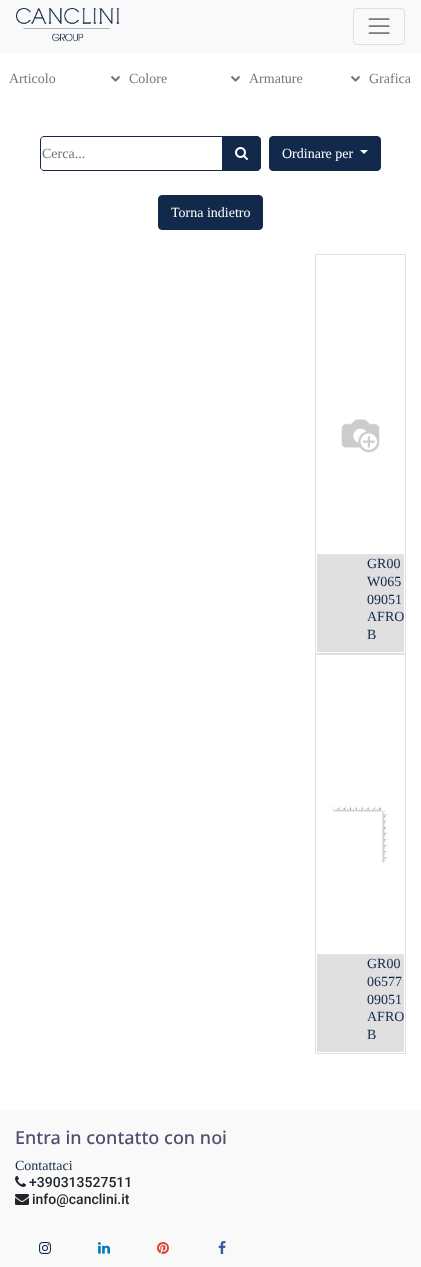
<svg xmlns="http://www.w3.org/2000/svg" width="421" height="1267">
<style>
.a{font:14px Liberation Serif;fill:#777}
.b{font:14px Liberation Serif;fill:#6c757d}
.c{font:14px Liberation Serif;fill:#fff}
.d{font:14px Liberation Serif;fill:#13294b}
.e{font:500 18px Noto Sans;fill:#4e4f6f}
.f{font:500 14px Roboto;fill:#212529}
</style>
<rect width="100%" height="100%" fill="#fff"/>
<path fill="#f9f9f9" d="M0 0h421v53H0z"/>
<image href="1.png" x="16" y="8" width="103" height="34"/>
<rect fill="none" stroke="#e0e0e0" x="353.5" y="8.5" width="51" height="36" rx="3.5"/>
<image href="2.png" x="368" y="18" width="22" height="16"/>
<path fill="none" stroke="#777" stroke-width="2" d="M-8.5 76.5l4 4l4-4"/>
<path fill="none" stroke="#777" stroke-width="2" d="M111.5 76.5l4 4l4-4"/>
<path fill="none" stroke="#777" stroke-width="2" d="M231.5 76.5l4 4l4-4"/>
<path fill="none" stroke="#777" stroke-width="2" d="M351.5 76.5l4 4l4-4"/>
<path fill="none" stroke="#13294b" d="M44 136.5h178.5v34h-178.5c-2 0-3.5-1.5-3.5-3.5v-27c0-2 1.5-3.5 3.5-3.5z"/>
<path fill="#13294b" stroke="#13294b" d="M222.5 136.5h34.5c2 0 3.5 1.5 3.5 3.5v27c0 2-1.5 3.5-3.5 3.5h-34.5z"/>
<image href="3.png" x="235" y="147" width="13" height="13"/>
<rect fill="#13294b" stroke="#13294b" x="269.5" y="136.5" width="111" height="34" rx="3.5"/>
<path fill="#fff" d="M360 150h8l-4 4z"/>
<rect fill="#13294b" stroke="#13294b" x="158.5" y="195.5" width="104" height="34" rx="3.5"/>
<path fill="none" stroke="#e0e0e0" d="M315.5 254.5h90v399H315.5z"/>
<image href="4.png" x="341" y="419" width="39" height="34"/>
<path fill="#e0e0e0" d="M317 555h87v97H317z"/>
<path fill="#e6e6e6" d="M317 554h87v1H317z"/>
<path fill="none" stroke="#e0e0e0" d="M315.5 654.5h90v399H315.5z"/>
<image href="5.png" x="332" y="806" width="56" height="57"/>
<path fill="#e0e0e0" d="M317 955h87v97H317z"/>
<path fill="#e6e6e6" d="M317 954h87v1H317z"/>
<path fill="#f9f9f9" d="M0 1110h421v157H0z"/>
<image href="6.png" x="15" y="1176" width="11" height="11"/>
<image href="7.png" x="15" y="1194" width="14" height="11"/>
<image href="8.png" x="39" y="1242" width="12" height="12"/>
<image href="9.png" x="98" y="1242" width="12" height="12"/>
<image href="10.png" x="157" y="1242" width="12" height="12"/>
<image href="11.png" x="218" y="1241" width="8" height="13"/>
<text class="a" x="9" y="83">Articolo</text>
<text class="a" x="129" y="83">Colore</text>
<text class="a" x="249" y="83">Armature</text>
<text class="a" x="369" y="83">Grafica</text>
<text class="b" x="42" y="158">Cerca...</text>
<text class="c" x="282" y="158">Ordinare per</text>
<text class="c" x="171" y="217">Torna indietro</text>
<text class="d" x="367" y="568">GR00</text>
<text class="d" x="367" y="586">W065</text>
<text class="d" x="367" y="604">09051</text>
<text class="d" x="367" y="621">AFRO</text>
<text class="d" x="367" y="639">B</text>
<text class="d" x="367" y="968">GR00</text>
<text class="d" x="367" y="986">06577</text>
<text class="d" x="367" y="1004">09051</text>
<text class="d" x="367" y="1021">AFRO</text>
<text class="d" x="367" y="1039">B</text>
<text class="e" x="15" y="1144">Entra in contatto con noi</text>
<text class="d" x="15" y="1170">Contattaci</text>
<text class="f" x="29" y="1187">+390313527511</text>
<text class="f" x="32" y="1204">info@canclini.it</text>
</svg>
